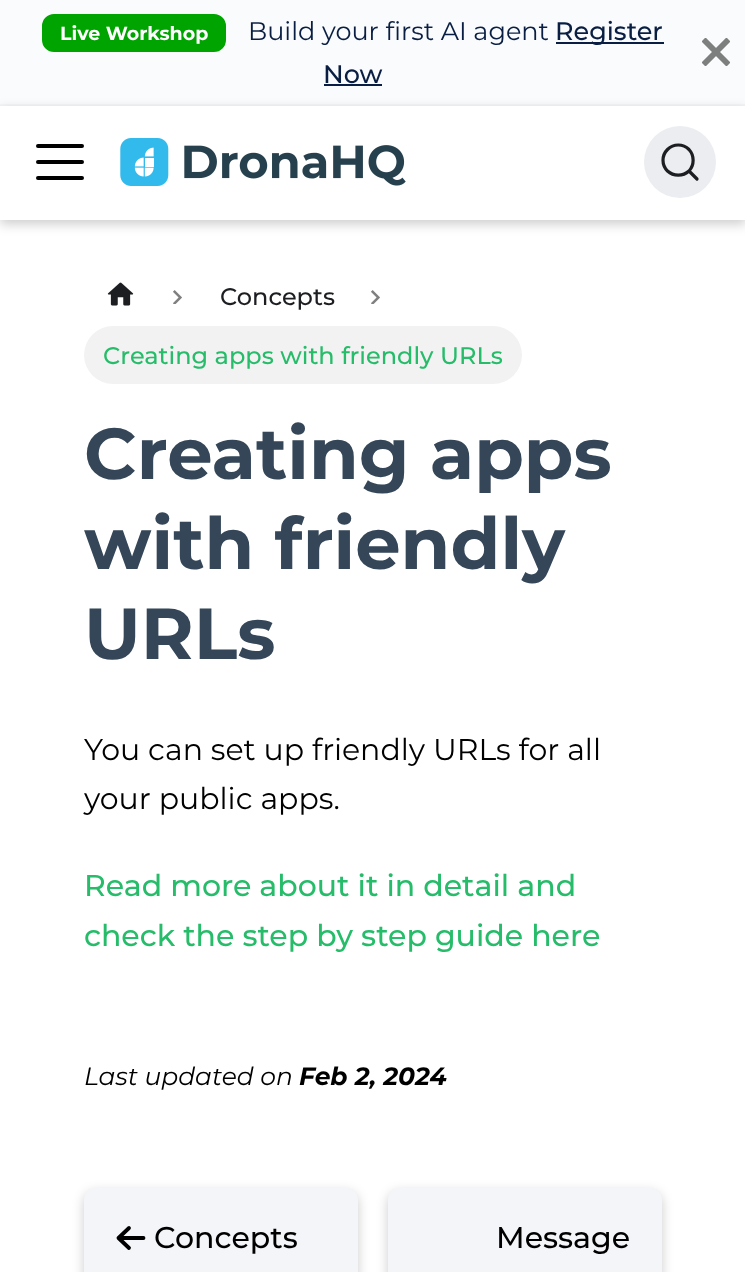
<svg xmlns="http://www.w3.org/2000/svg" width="745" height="1272">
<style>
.a{font:bold 19px Montserrat;fill:#fff}
.b{font:25.5px Montserrat;fill:#091e42}
.c{font:500 25.5px Montserrat;fill:#091e42}
.d{font:500 24px Montserrat;fill:#1c1e21}
.e{font:500 24px Montserrat;fill:#26bc6a}
.f{font:bold 72px Montserrat;fill:#344658}
.g{font:30px Montserrat;fill:#000}
.h{font:500 30px Montserrat;fill:#26bc6a}
.i{font:italic 25px Montserrat;fill:#000}
.j{font:italic bold 25px Montserrat;fill:#000}
.k{font:500 30px Montserrat;fill:#000}
</style>
<defs>
<clipPath id="clip1"><path d="M702 38h28v28H702z"/></clipPath>
<clipPath id="clip2"><path d="M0 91h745v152h-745zm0 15h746v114h-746z" clip-rule="evenodd"/></clipPath>
</defs>
<rect width="100%" height="100%" fill="#fff"/>
<path fill="#fafbfc" d="M0 0h745v104H0z"/>
<path fill="#f5f6f7" d="M0 104h745v2H0z"/>
<rect fill="#00a400" stroke="#00a400" stroke-width="2" x="43" y="15" width="182" height="36" rx="11"/>
<path fill="#091e42" d="M556 42h108v2H556z"/>
<path fill="#091e42" d="M324 84h58v2H324z"/>
<g clip-path="url(#clip1)">
<path fill="none" stroke="#7d7e7e" stroke-width="5.8" d="M703.5 39.5l25 25m0-25l-25 25"/>
</g>
<g clip-path="url(#clip2)">
<path fill="#00000033" filter="blur(6px)" d="M0 110h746v114H0z"/>
</g>
<path fill="none" stroke="#000" stroke-width="4" stroke-linecap="round" d="M38 146h44m-44 16h44m-44 16h44"/>
<image href="1.png" x="120" y="138" width="286" height="48"/>
<circle fill="#ebedf0" cx="680" cy="162" r="36"/>
<path fill="none" stroke="#1c1e21" stroke-width="3.2" stroke-linecap="round" stroke-linejoin="round" d="M689 171l8 8l-8-8c-6 5.5-15.5 5.5-21.5 0c-6-6-6-15.5 0-21.5c6-6 15.5-6 21.5 0c5.5 6 5.5 15.5 0 21.5z"/>
<image href="2.png" x="107" y="282" width="27" height="24"/>
<image href="3.png" x="173" y="290" width="9" height="14"/>
<image href="3.png" x="371" y="290" width="9" height="14"/>
<rect fill="#f2f2f2" x="84" y="326" width="438" height="58" rx="29"/>
<rect fill="#00000033" filter="blur(6px)" x="84" y="1192" width="274" height="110" rx="12"/>
<rect fill="#f3f5f8" x="84" y="1188" width="274" height="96" rx="12"/>
<path fill="none" stroke="#000" stroke-width="3.8" stroke-linecap="round" stroke-linejoin="round" d="M143.5 1238h-25m0 0l10.5 10m-10.5-10l10.5-10"/>
<rect fill="#00000033" filter="blur(6px)" x="388" y="1192" width="274" height="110" rx="12"/>
<rect fill="#f3f5f8" x="388" y="1188" width="274" height="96" rx="12"/>
<text class="a" x="60" y="40">Live Workshop</text>
<text class="b" x="248" y="40">Build your first AI agent</text>
<text class="c" x="555" y="40">Register</text>
<text class="c" x="323" y="83">Now</text>
<text class="d" x="220" y="305">Concepts</text>
<text class="e" x="103" y="364">Creating apps with friendly URLs</text>
<text class="f" x="84" y="479">Creating apps</text>
<text class="f" x="84" y="569">with friendly</text>
<text class="f" x="84" y="659">URLs</text>
<text class="g" x="84" y="760">You can set up friendly URLs for all</text>
<text class="g" x="84" y="809">your public apps.</text>
<text class="h" x="84" y="896">Read more about it in detail and</text>
<text class="h" x="84" y="946">check the step by step guide here</text>
<text class="i" x="84" y="1085">Last updated on</text>
<text class="j" x="299" y="1085">Feb 2, 2024</text>
<text class="k" x="154" y="1248">Concepts</text>
<text class="k" x="496" y="1248">Message</text>
</svg>
